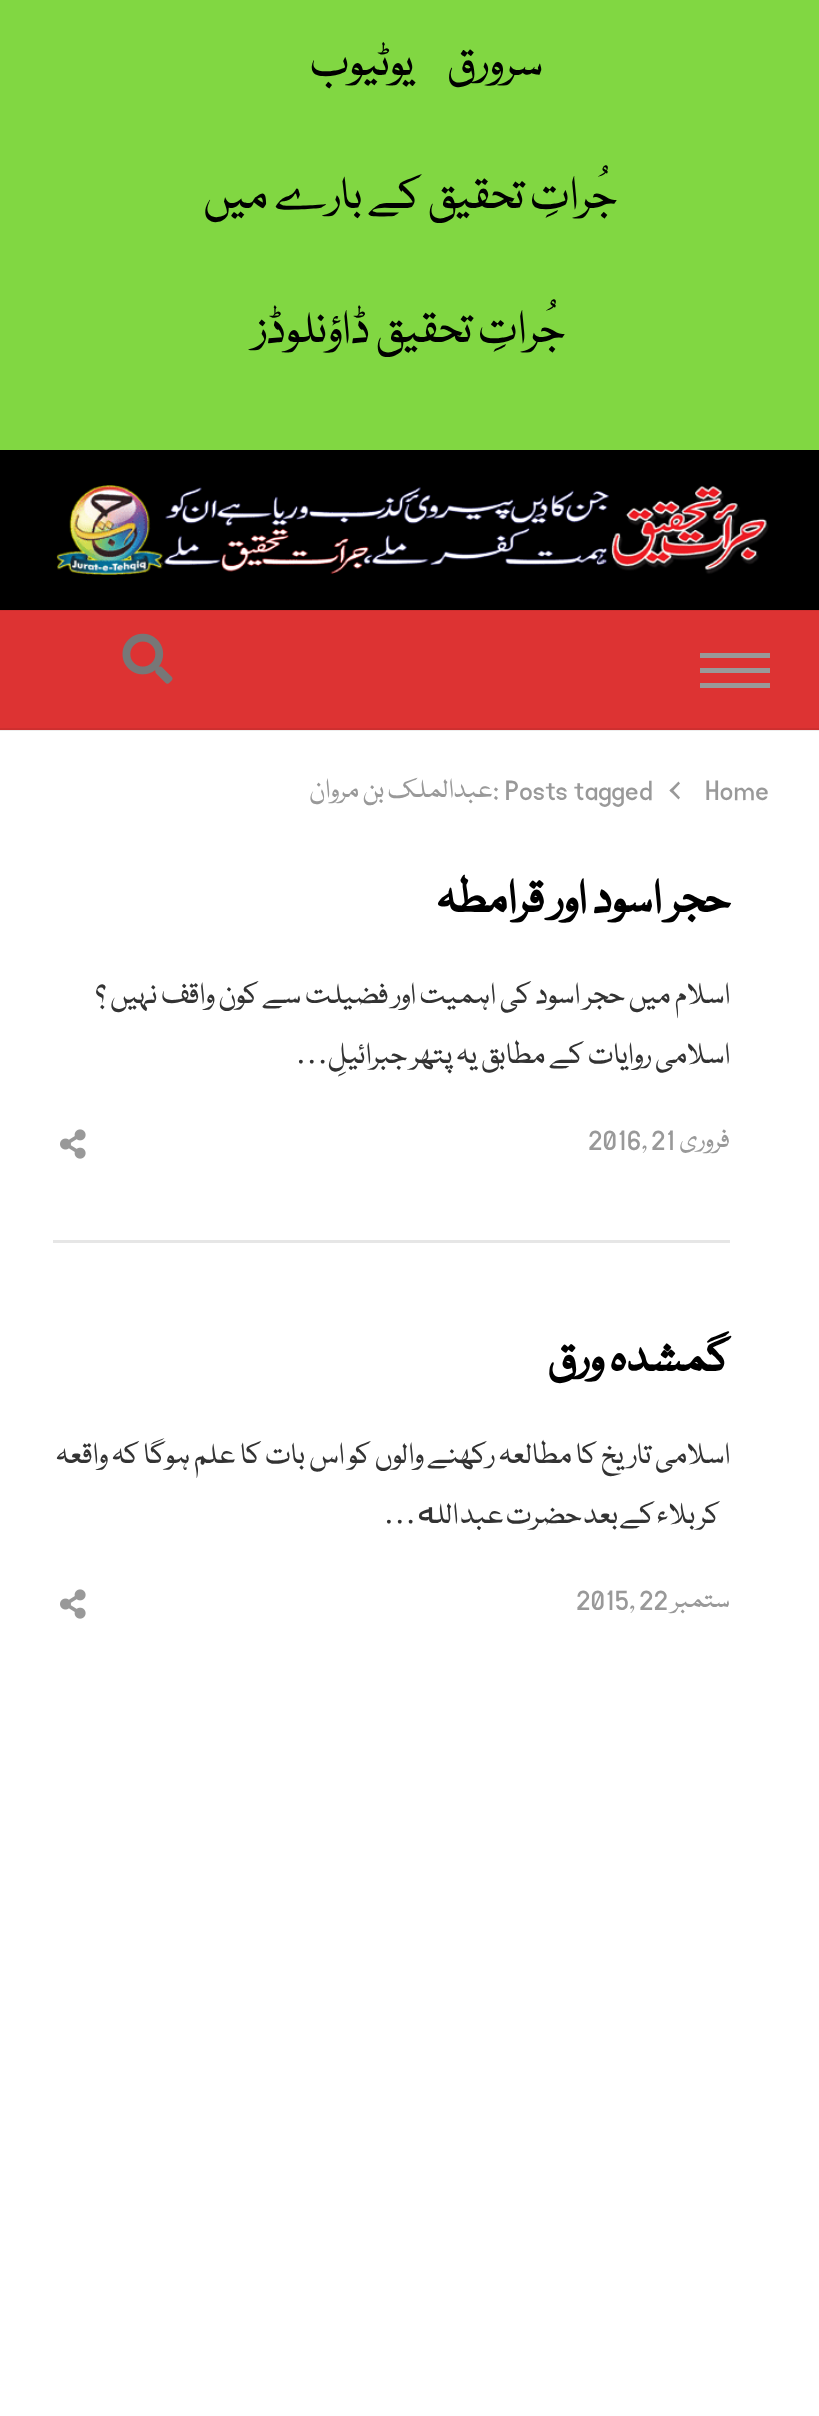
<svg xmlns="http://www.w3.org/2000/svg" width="819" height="2416">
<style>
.a{font:50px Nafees;direction:rtl;fill:#000}
.b{font:29.25px Nafees;fill:#999}
.c{font:29.25px Nafees;direction:rtl;fill:#999}
.d{font:bold 50px Nafees;direction:rtl;fill:#000}
.e{font:32.5px Nafees;direction:rtl;fill:#333}
.f{font:32.5px Liberation Serif;direction:rtl;fill:#333}
.g{font:32.5px Cascadia Code;direction:rtl;fill:#333}
</style>
<rect width="100%" height="100%" fill="#fff"/>
<path fill="#ededed" d="M0 730h819v1H0z"/>
<path fill="#81d742" d="M0 0h819v450H0z"/>
<path fill="#000" d="M0 450h819v160H0z"/>
<image href="1.png" x="56" y="485" width="713" height="90"/>
<path fill="#d33" d="M0 611h819v117H0z"/>
<path fill="#ce2f2f" d="M0 610h819v1H0z"/>
<path fill="#ce2f2f" d="M0 728h819v2H0z"/>
<path fill="#999" d="M700 668h70v5H700z"/>
<path fill="#999" d="M700 653h70v5H700z"/>
<path fill="#999" d="M700 683h70v5H700z"/>
<image href="2.png" x="122" y="633" width="51" height="51"/>
<path fill="#999" d="M671.5 788.5l8.5 9l-1.5 2l-9-9z"/>
<path fill="#999" d="M678.5 781.5l1.5 2l-8.5 9l-2-2z"/>
<image href="3.png" x="60" y="1129" width="26" height="30"/>
<path fill="#e6e6e6" d="M53 1240h677v3H53z"/>
<image href="3.png" x="60" y="1589" width="26" height="30"/>
<text class="a" x="543" y="75">سرورق</text>
<text class="a" x="414" y="75">یوٹیوب</text>
<text class="a" x="617" y="208">جُراتِ تحقیق کے بارے میں</text>
<text class="a" x="565" y="342">جُراتِ تحقیق ڈاؤنلوڈز</text>
<text class="b" x="705" y="797">Home</text>
<text class="b" x="493" y="797">: Posts tagged</text>
<text class="c" x="493" y="797">عبدالملک بن مروان</text>
<text class="d" x="730" y="912">حجر اسود اور قرامطہ</text>
<text class="e" x="730" y="1003">اسلام میں حجر اسود کی اہمیت اور فضیلت سے کون واقف نہیں ؟</text>
<text class="e" x="730" y="1063">اسلامی روایات کے مطابق یہ پتھر جبرائیلِ</text>
<text class="f" x="328" y="1063">…</text>
<text class="c" x="730" y="1147">فروری</text>
<text class="b" x="651" y="1147">21</text>
<text class="b" x="588" y="1147">2016,</text>
<text class="d" x="730" y="1371">گمشدہ ورق</text>
<text class="e" x="730" y="1463">اسلامی تاریخ کا مطالعہ رکھنے والوں کو اس بات کا علم ہوگا کہ واقعہ</text>
<text class="g" x="435" y="1523">‍ه</text>
<text class="e" x="720" y="1523" word-spacing="-2">کربلاء کے بعد حضرت عبد الل‍</text>
<text class="f" x="416" y="1523">…</text>
<text class="c" x="730" y="1607">ستمبر</text>
<text class="b" x="639" y="1607">22</text>
<text class="b" x="576" y="1607">2015,</text>
</svg>
